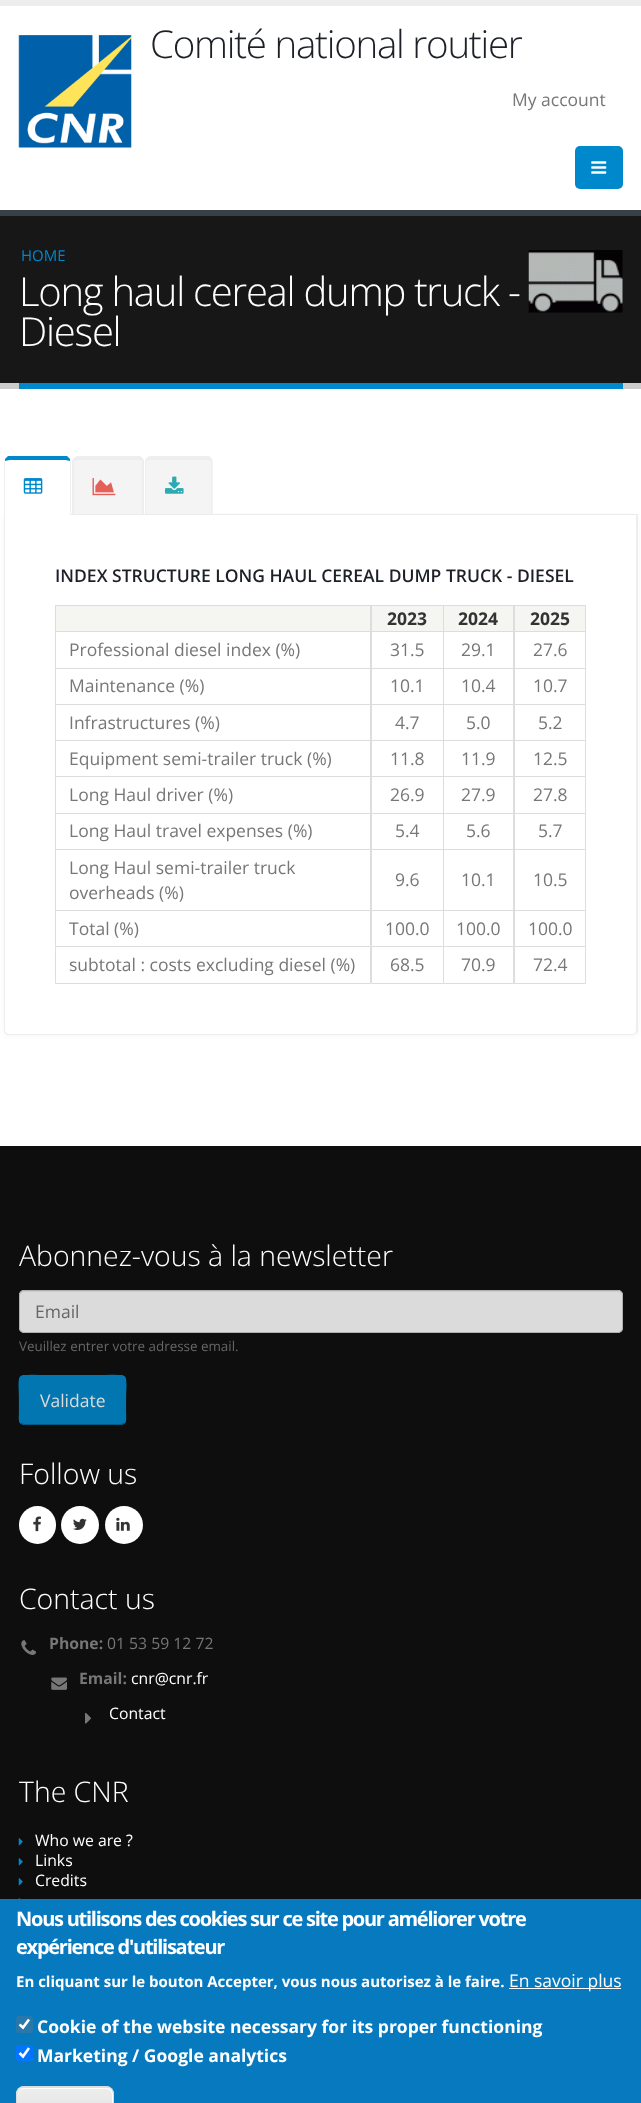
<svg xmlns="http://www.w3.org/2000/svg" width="641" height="2103">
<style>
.a{font:300 38.5px Open Sans;letter-spacing:-1.25px;fill:#1d2127}
.b{font:17.5px Open Sans;fill:#777}
.c{font:15px Open Sans;fill:#08c}
.d{font:300 40px Open Sans;letter-spacing:-1.25px;fill:#fff}
.e{font:600 17.5px Open Sans;fill:#1d2127}
.f{font:bold 17.5px Open Sans;fill:#333}
.g{font:300 28.4px Open Sans;fill:#fff}
.h{font:17.5px Open Sans;fill:#666}
.i{font:13.4px Open Sans;fill:#666}
.j{font:17.5px Open Sans;fill:#dbdbdb}
.k{font:bold 15.75px Open Sans;fill:#777}
.l{font:15.75px Open Sans;fill:#777}
.m{font:15.75px Open Sans;fill:#fff}
.n{font:bold 20px Open Sans;letter-spacing:-1.25px;fill:#fff}
.o{font:bold 15px Open Sans;fill:#fff}
.p{font:17.5px Open Sans;fill:#fff}
.q{font:bold 17.5px Open Sans;fill:#fff}
</style>
<defs>
<clipPath id="clip1"><rect x="16" y="2086" width="98" height="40" rx="8"/></clipPath>
<linearGradient id="g1" gradientUnits="userSpaceOnUse" x1="65" y1="2050" x2="65" y2="2088"><stop offset="0.05" stop-color="#ededed"/><stop offset="1" stop-color="#dfdfdf"/></linearGradient>
<linearGradient id="g2" gradientUnits="userSpaceOnUse" x1="65" y1="2088" x2="65" y2="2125"><stop offset="0.05" stop-color="#ededed"/><stop offset="1" stop-color="#dfdfdf"/></linearGradient>
</defs>
<rect width="100%" height="100%" fill="#fff"/>
<path fill="#ededed" d="M0 0h641v6H0z"/>
<image href="1.png" x="18" y="35" width="114" height="113"/>
<rect fill="#08c" x="575" y="146" width="48" height="43" rx="5"/>
<image href="2.png" x="591" y="161" width="16" height="13"/>
<path fill="#171717" d="M0 216h641v167H0z"/>
<path fill="#384045" d="M0 210h641v6H0z"/>
<path fill="#ccc" d="M0 383h641v6H0z"/>
<path fill="#08c" d="M19 383h604v6H19z"/>
<image href="3.png" x="528" y="250" width="95" height="63"/>
<path fill="#eee" d="M71 514h567v1H71z"/>
<rect fill="#0000000a" filter="blur(3px)" x="4" y="516" width="634" height="520" rx="5"/>
<path fill="#fff" d="M10 456h55c3.5 0 6 2.5 6 6v53h-67v-53c0-3.5 2.5-6 6-6z"/>
<path fill="#08c" d="M10 460c-2 0-4 1-5 1v-2c1-1 2-2 3-3h59c1 1 2 2 3 3v2c-1 0-3-1-5-1z"/>
<path fill="#eee" d="M70 459l1 3v53l-1-1c0-6 0-52 0-53z"/>
<path fill="#eee" d="M4 515v-53l1-3v2c0 1 0 47 0 53z"/>
<image href="4.png" x="23" y="478" width="20" height="16"/>
<path fill="#f4f4f4" d="M79 456h59c3.5 0 6 2.5 6 6v52h-71v-52c0-3.5 2.5-6 6-6z"/>
<path fill="#eee" fill-rule="evenodd" d="M79 456h59c3 0 6 3 6 6v52h-72v-52c0-3 3-6 7-6zm0 4h59c2 0 4 1 4 2v52h-68v-52c0-1 2-2 5-2z"/>
<image href="5.png" x="92" y="478" width="24" height="18"/>
<path fill="#f4f4f4" d="M151 456h56c3.5 0 6 2.5 6 6v52h-68v-52c0-3.5 2.5-6 6-6z"/>
<path fill="#eee" fill-rule="evenodd" d="M151 456h55c4 0 6 3 6 6v52h-67v-52c0-3 3-6 6-6zm0 4h55c3 0 5 1 5 2v52h-65v-52c0-1 2-2 5-2z"/>
<image href="6.png" x="165" y="476" width="19" height="18"/>
<path fill="#fff" d="M4 515h634v515c0 3-2 5-5 5h-624c-3 0-5-2-5-5z"/>
<path fill="#eee" fill-rule="evenodd" d="M4 515h634v515c0 3-3 5-6 5h-623c-3 0-5-2-5-5zm1 0h631v515c0 2-1 4-4 4h-623c-2 0-4-2-4-4z"/>
<path fill="#f5f5f2" d="M56 606h314v25H56z"/>
<path fill="#ddd" d="M55 605h531v1H55z"/>
<path fill="#ddd" d="M370 605h2v26H370z"/>
<path fill="#ddd" d="M55 605h1v26H55z"/>
<path fill="#f5f5f2" d="M372 606h71v25H372z"/>
<path fill="#ddd" d="M443 605h1v26H443z"/>
<path fill="#f5f5f2" d="M444 606h69v25H444z"/>
<path fill="#ddd" d="M513 605h2v26H513z"/>
<path fill="#f5f5f2" d="M515 606h70v25H515z"/>
<path fill="#ddd" d="M585 605h1v26H585z"/>
<path fill="#ddd" d="M55 631h531v1H55z"/>
<path fill="#ddd" d="M370 631h2v37H370z"/>
<path fill="#ddd" d="M55 631h1v37H55z"/>
<path fill="#ddd" d="M443 631h1v37H443z"/>
<path fill="#ddd" d="M513 631h2v37H513z"/>
<path fill="#ddd" d="M585 631h1v37H585z"/>
<path fill="#ddd" d="M55 668h531v1H55z"/>
<path fill="#ddd" d="M370 668h2v36H370z"/>
<path fill="#ddd" d="M55 668h1v36H55z"/>
<path fill="#ddd" d="M443 668h1v36H443z"/>
<path fill="#ddd" d="M513 668h2v36H513z"/>
<path fill="#ddd" d="M585 668h1v36H585z"/>
<path fill="#ddd" d="M55 704h531v1H55z"/>
<path fill="#ddd" d="M370 704h2v36H370z"/>
<path fill="#ddd" d="M55 704h1v36H55z"/>
<path fill="#ddd" d="M443 704h1v36H443z"/>
<path fill="#ddd" d="M513 704h2v36H513z"/>
<path fill="#ddd" d="M585 704h1v36H585z"/>
<path fill="#ddd" d="M55 740h531v1H55z"/>
<path fill="#ddd" d="M370 740h2v36H370z"/>
<path fill="#ddd" d="M55 740h1v36H55z"/>
<path fill="#ddd" d="M443 740h1v36H443z"/>
<path fill="#ddd" d="M513 740h2v36H513z"/>
<path fill="#ddd" d="M585 740h1v36H585z"/>
<path fill="#ddd" d="M55 776h531v1H55z"/>
<path fill="#ddd" d="M370 776h2v37H370z"/>
<path fill="#ddd" d="M55 776h1v37H55z"/>
<path fill="#ddd" d="M443 776h1v37H443z"/>
<path fill="#ddd" d="M513 776h2v37H513z"/>
<path fill="#ddd" d="M585 776h1v37H585z"/>
<path fill="#ddd" d="M55 813h531v1H55z"/>
<path fill="#ddd" d="M370 813h2v36H370z"/>
<path fill="#ddd" d="M55 813h1v36H55z"/>
<path fill="#ddd" d="M443 813h1v36H443z"/>
<path fill="#ddd" d="M513 813h2v36H513z"/>
<path fill="#ddd" d="M585 813h1v36H585z"/>
<path fill="#ddd" d="M55 849h531v1H55z"/>
<path fill="#ddd" d="M370 849h2v61H370z"/>
<path fill="#ddd" d="M55 849h1v61H55z"/>
<path fill="#ddd" d="M443 849h1v61H443z"/>
<path fill="#ddd" d="M513 849h2v61H513z"/>
<path fill="#ddd" d="M585 849h1v61H585z"/>
<path fill="#ddd" d="M55 910h531v1H55z"/>
<path fill="#ddd" d="M370 910h2v36H370z"/>
<path fill="#ddd" d="M55 910h1v36H55z"/>
<path fill="#ddd" d="M443 910h1v36H443z"/>
<path fill="#ddd" d="M513 910h2v36H513z"/>
<path fill="#ddd" d="M585 910h1v36H585z"/>
<path fill="none" stroke="#ddd" d="M55.5 946.5h315v37H55.5z"/>
<path fill="none" stroke="#ddd" d="M371.5 946.5h72v37H371.5z"/>
<path fill="#ddd" d="M444 946h70v1H444z"/>
<path fill="#ddd" d="M513 946h1v38H513z"/>
<path fill="#ddd" d="M444 983h70v1H444z"/>
<path fill="none" stroke="#ddd" d="M514.5 946.5h71v37H514.5z"/>
<path fill="#0e0e0e" d="M0 1146h641v753H0z"/>
<rect fill="#dbdbdb" x="19" y="1290" width="604" height="43" rx="5"/>
<path fill="#cbcbcb" d="M24 1292h594c2 0 3 2 3 4v-1c0-2-2-4-4-4h-593c-2 0-4 2-4 4v1c0-2 2-4 4-4z"/>
<rect fill="none" stroke="#b0b0b0" x="19.5" y="1290.5" width="603" height="42" rx="4.5"/>
<rect fill="#0276b0" x="19" y="1375" width="107" height="50" rx="5"/>
<path fill="none" stroke="#025984" stroke-width="1.2" d="M124.5 1423l-3 1.5h-98l-3-1.5"/>
<path fill="none" stroke="#0276b0" stroke-width="1.2" d="M20.5 1423c-2-2-1-7.5-1-9.5v-13.5c0-27.5-5.5-24.5 20.5-24.5h65c26 0 20.5-3 20.5 24.5v13.5c0 2 1 7.5-1 9.5"/>
<rect fill="#fff" x="19" y="1506" width="37" height="38" rx="18.5"/>
<image href="7.png" x="33" y="1516" width="8" height="16"/>
<circle fill="#fff" cx="80" cy="1525" r="19"/>
<image href="8.png" x="73" y="1518" width="14" height="12"/>
<circle fill="#fff" cx="124" cy="1525" r="19"/>
<image href="9.png" x="116" y="1517" width="14" height="14"/>
<image href="10.png" x="21" y="1640" width="15" height="15"/>
<image href="11.png" x="51" y="1677" width="16" height="13"/>
<image href="12.png" x="85" y="1712" width="6" height="12"/>
<image href="13.png" x="18" y="1838" width="5" height="8"/>
<image href="13.png" x="18" y="1858" width="5" height="8"/>
<image href="13.png" x="18" y="1878" width="5" height="8"/>
<image href="14.png" x="18" y="1898" width="3" height="1"/>
<path fill="#0779bf" d="M0 1899h641v204H0z"/>
<path fill="#fff" d="M509 1988h112v1H509z"/>
<rect fill="#2878a9" x="16" y="2016" width="17" height="17" rx="2.5"/>
<path fill="none" stroke="#fff" stroke-width="2.6" d="M19.5 2024.5l3.5 3l6-8"/>
<rect fill="#0075ff" x="16" y="2045" width="17" height="16" rx="2.5"/>
<path fill="none" stroke="#fff" stroke-width="2.6" d="M19.5 2053l3.5 3.5l6-8.5"/>
<g clip-path="url(#clip1)">
<path fill="url(#g1)" d="M16 2086h98v2H16z"/>
<path fill="url(#g2)" d="M16 2088h98v15H16z"/>
</g>
<path fill="#fff" d="M24 2089h82c4 0 6 3 6 6v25c0 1 0 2-1 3c1-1 2-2 2-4v-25c0-3-3-6-6-6h-83c-3 0-6 3-6 6v1c0-3 2-6 6-6z"/>
<rect fill="none" stroke="#dcdcdc" x="16.5" y="2086.5" width="97" height="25" rx="7.5"/>
<text class="a" x="150" y="58">Comité national routier</text>
<text class="b" x="512" y="106">My account</text>
<text class="c" x="21" y="261">HOME</text>
<text class="d" x="19" y="306">Long haul cereal dump truck -</text>
<text class="d" x="19" y="346">Diesel</text>
<text class="e" x="55" y="582">INDEX STRUCTURE LONG HAUL CEREAL DUMP TRUCK - DIESEL</text>
<text class="f" x="387" y="625">2023</text>
<text class="f" x="458" y="625">2024</text>
<text class="f" x="530" y="625">2025</text>
<text class="b" x="69" y="656">Professional diesel index (%)</text>
<text class="b" x="390" y="656">31.5</text>
<text class="b" x="461" y="656">29.1</text>
<text class="b" x="533" y="656">27.6</text>
<text class="b" x="69" y="692">Maintenance (%)</text>
<text class="b" x="390" y="692">10.1</text>
<text class="b" x="461" y="692">10.4</text>
<text class="b" x="533" y="692">10.7</text>
<text class="b" x="69" y="729">Infrastructures (%)</text>
<text class="b" x="395" y="729">4.7</text>
<text class="b" x="466" y="729">5.0</text>
<text class="b" x="538" y="729">5.2</text>
<text class="b" x="69" y="765">Equipment semi-trailer truck (%)</text>
<text class="b" x="390" y="765">11.8</text>
<text class="b" x="461" y="765">11.9</text>
<text class="b" x="533" y="765">12.5</text>
<text class="b" x="69" y="801">Long Haul driver (%)</text>
<text class="b" x="390" y="801">26.9</text>
<text class="b" x="461" y="801">27.9</text>
<text class="b" x="533" y="801">27.8</text>
<text class="b" x="69" y="837">Long Haul travel expenses (%)</text>
<text class="b" x="395" y="837">5.4</text>
<text class="b" x="466" y="837">5.6</text>
<text class="b" x="538" y="837">5.7</text>
<text class="b" x="69" y="874">Long Haul semi-trailer truck</text>
<text class="b" x="69" y="899">overheads (%)</text>
<text class="b" x="395" y="886">9.6</text>
<text class="b" x="461" y="886">10.1</text>
<text class="b" x="533" y="886">10.5</text>
<text class="b" x="69" y="935">Total (%)</text>
<text class="b" x="385" y="935">100.0</text>
<text class="b" x="456" y="935">100.0</text>
<text class="b" x="528" y="935">100.0</text>
<text class="b" x="69" y="971">subtotal : costs excluding diesel (%)</text>
<text class="b" x="390" y="971">68.5</text>
<text class="b" x="461" y="971">70.9</text>
<text class="b" x="533" y="971">72.4</text>
<text class="g" x="19" y="1266">Abonnez-vous à la newsletter</text>
<text class="h" x="35" y="1318">Email</text>
<text class="i" x="19" y="1351">Veuillez entrer votre adresse email.</text>
<text class="j" x="40" y="1407">Validate</text>
<text class="g" x="19" y="1484">Follow us</text>
<text class="g" x="19" y="1609">Contact us</text>
<text class="k" x="49" y="1649">Phone:</text>
<text class="l" x="107" y="1649">01 53 59 12 72</text>
<text class="k" x="79" y="1684">Email:</text>
<text class="m" x="131" y="1684">cnr@cnr.fr</text>
<text class="m" x="109" y="1719">Contact</text>
<text class="g" x="19" y="1802">The CNR</text>
<text class="m" x="35" y="1846">Who we are ?</text>
<text class="m" x="35" y="1866">Links</text>
<text class="m" x="35" y="1886">Credits</text>
<text class="n" x="16" y="1926">Nous utilisons des cookies sur ce site pour améliorer votre</text>
<text class="n" x="16" y="1954">expérience d'utilisateur</text>
<text class="o" x="16" y="1987">En cliquant sur le bouton Accepter, vous nous autorisez à le faire.</text>
<text class="p" x="509" y="1987">En savoir plus</text>
<text class="q" x="37" y="2033">Cookie of the website necessary for its proper functioning</text>
<text class="q" x="37" y="2062">Marketing / Google analytics</text>
</svg>
